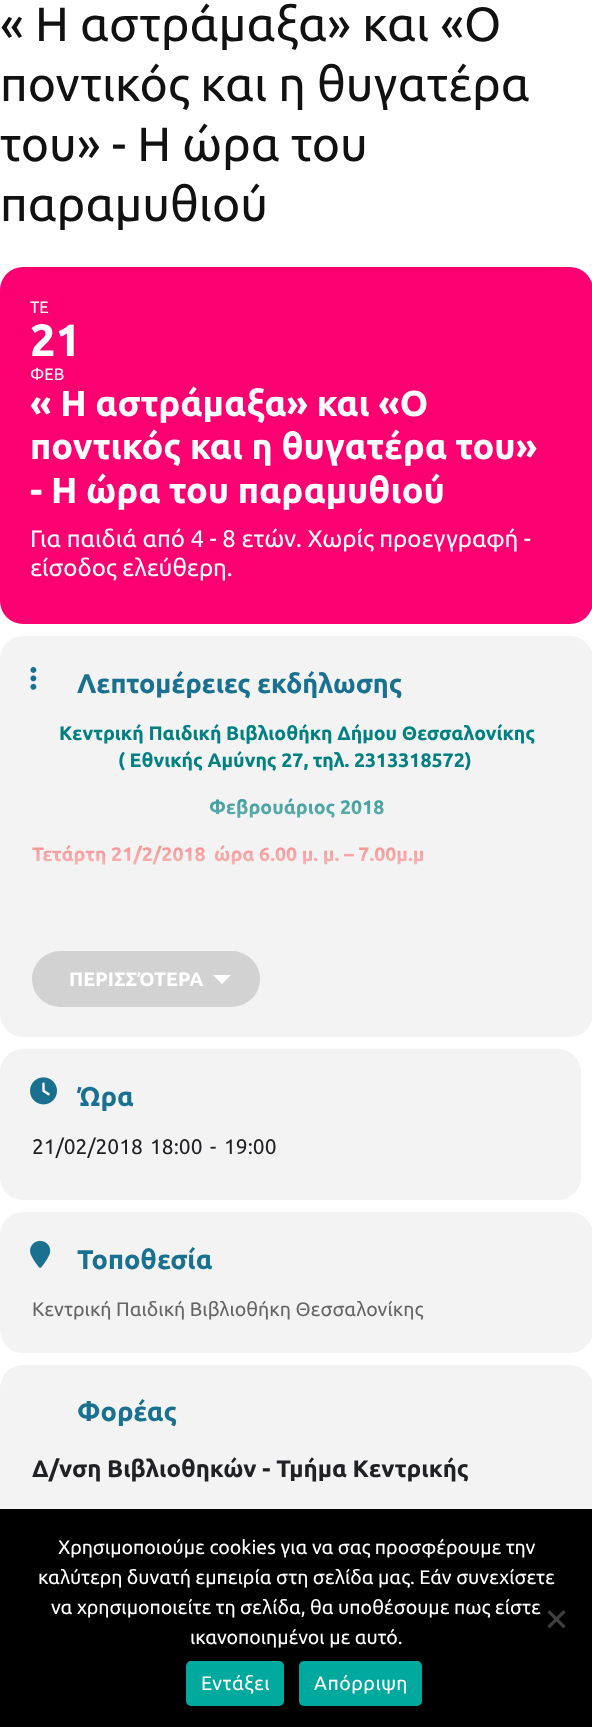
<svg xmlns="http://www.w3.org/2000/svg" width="592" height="1727">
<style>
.a{font:48px Ubuntu;fill:#111}
.b{font:16.5px Ubuntu;fill:#fff}
.c{font:bold 45px Ubuntu;fill:#fff}
.d{font:bold 36px Ubuntu;fill:#fff}
.e{font:24px Ubuntu;fill:#fff}
.f{font:bold 27px Ubuntu;fill:#19708f}
.g{font:bold 19.5px Ubuntu;fill:#008080}
.h{font:bold 19.5px Ubuntu;fill:#f00}
.i{font:bold 19.5px Ubuntu;fill:#fff}
.j{font:21px Ubuntu;fill:#202124}
.k{font:19.5px Ubuntu;fill:#656565}
.l{font:bold 24px Ubuntu;fill:#202124}
.m{font:19.5px Ubuntu;fill:#fff}
.n{font:19.5px Ubuntu;letter-spacing:0.5px;fill:#fff}
</style>
<defs>
<linearGradient id="g1" gradientUnits="userSpaceOnUse" x1="297" y1="944" x2="297" y2="719"><stop offset="0.2" stop-color="#f3f3f3"/><stop offset="0.8" stop-color="#f3f3f3" stop-opacity="0"/></linearGradient>
</defs>
<rect width="100%" height="100%" fill="#fff"/>
<rect fill="#fc0071" y="267" width="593" height="357" rx="23"/>
<rect fill="#f3f3f3" y="636" width="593" height="401" rx="23"/>
<image href="1.png" x="30" y="667" width="7" height="23"/>
<rect fill="#d2d2d2" x="32" y="951" width="228" height="56" rx="28"/>
<path fill="#fff" d="M213 975h18l-9 9z"/>
<rect fill="#f3f3f3" y="1049" width="581" height="151" rx="23"/>
<image href="2.png" x="30" y="1077" width="27" height="28"/>
<rect fill="#f3f3f3" y="1212" width="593" height="141" rx="23"/>
<image href="3.png" x="30" y="1240" width="21" height="28"/>
<rect fill="#f3f3f3" y="1365" width="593" height="299" rx="23"/>
<path fill="#000" d="M0 1509h592v218H0z"/>
<path fill="#404040" d="M563.5 1610l2 2.5l-16 16l-2-2.5z"/>
<path fill="#404040" d="M547.5 1612.5l2-2.5l16 16l-2 2.5z"/>
<rect fill="#00a99d" x="186" y="1661" width="98" height="45" rx="5"/>
<rect fill="#00a99d" x="299" y="1661" width="123" height="45" rx="5"/>
<text class="a" x="0" y="41">« Η αστράμαξα» και «Ο</text>
<text class="a" x="0" y="101">ποντικός και η θυγατέρα</text>
<text class="a" x="0" y="161">του» - Η ώρα του</text>
<text class="a" x="0" y="221">παραμυθιού</text>
<text class="b" x="30" y="313">ΤΕ</text>
<text class="c" x="30" y="356">21</text>
<text class="b" x="30" y="380">ΦΕΒ</text>
<text class="d" x="30" y="416">« Η αστράμαξα» και «Ο</text>
<text class="d" x="30" y="459">ποντικός και η θυγατέρα του»</text>
<text class="d" x="30" y="503">- Η ώρα του παραμυθιού</text>
<text class="e" x="30" y="547">Για παιδιά από 4 - 8 ετών. Χωρίς προεγγραφή -</text>
<text class="e" x="30" y="576">είσοδος ελεύθερη.</text>
<text class="f" x="77" y="693">Λεπτομέρειες εκδήλωσης</text>
<text class="g" x="59" y="740">Κεντρική Παιδική Βιβλιοθήκη Δήμου Θεσσαλονίκης</text>
<text class="g" x="118" y="767">( Εθνικής Αμύνης 27, τηλ. 2313318572)</text>
<text class="g" x="209" y="814">Φεβρουάριος 2018</text>
<text class="h" x="32" y="861">Τετάρτη 21/2/2018</text>
<text class="h" x="214" y="861">ώρα 6.00 μ. μ. – 7.00μ.μ</text>
<path fill="url(#g1)" d="M32 767h437v98H32z"/>
<text class="i" x="69" y="986">ΠΕΡΙΣΣΌΤΕΡΑ</text>
<text class="f" x="77" y="1106">Ώρα</text>
<text class="j" x="32" y="1154">21/02/2018</text>
<text class="j" x="150" y="1154">18:00</text>
<text class="j" x="210" y="1154">-</text>
<text class="j" x="224" y="1154">19:00</text>
<text class="f" x="77" y="1269">Τοποθεσία</text>
<text class="k" x="32" y="1316">Κεντρική Παιδική Βιβλιοθήκη Θεσσαλονίκης</text>
<text class="f" x="77" y="1421">Φορέας</text>
<text class="l" x="32" y="1477">Δ/νση Βιβλιοθηκών - Τμήμα Κεντρικής</text>
<text class="m" x="58" y="1554">Χρησιμοποιούμε cookies για να σας προσφέρουμε την</text>
<text class="m" x="38" y="1584">καλύτερη δυνατή εμπειρία στη σελίδα μας. Εάν συνεχίσετε</text>
<text class="m" x="51" y="1614">να χρησιμοποιείτε τη σελίδα, θα υποθέσουμε πως είστε</text>
<text class="m" x="190" y="1644">ικανοποιημένοι με αυτό.</text>
<text class="n" x="201" y="1690">Εντάξει</text>
<text class="n" x="314" y="1690">Απόρριψη</text>
</svg>
